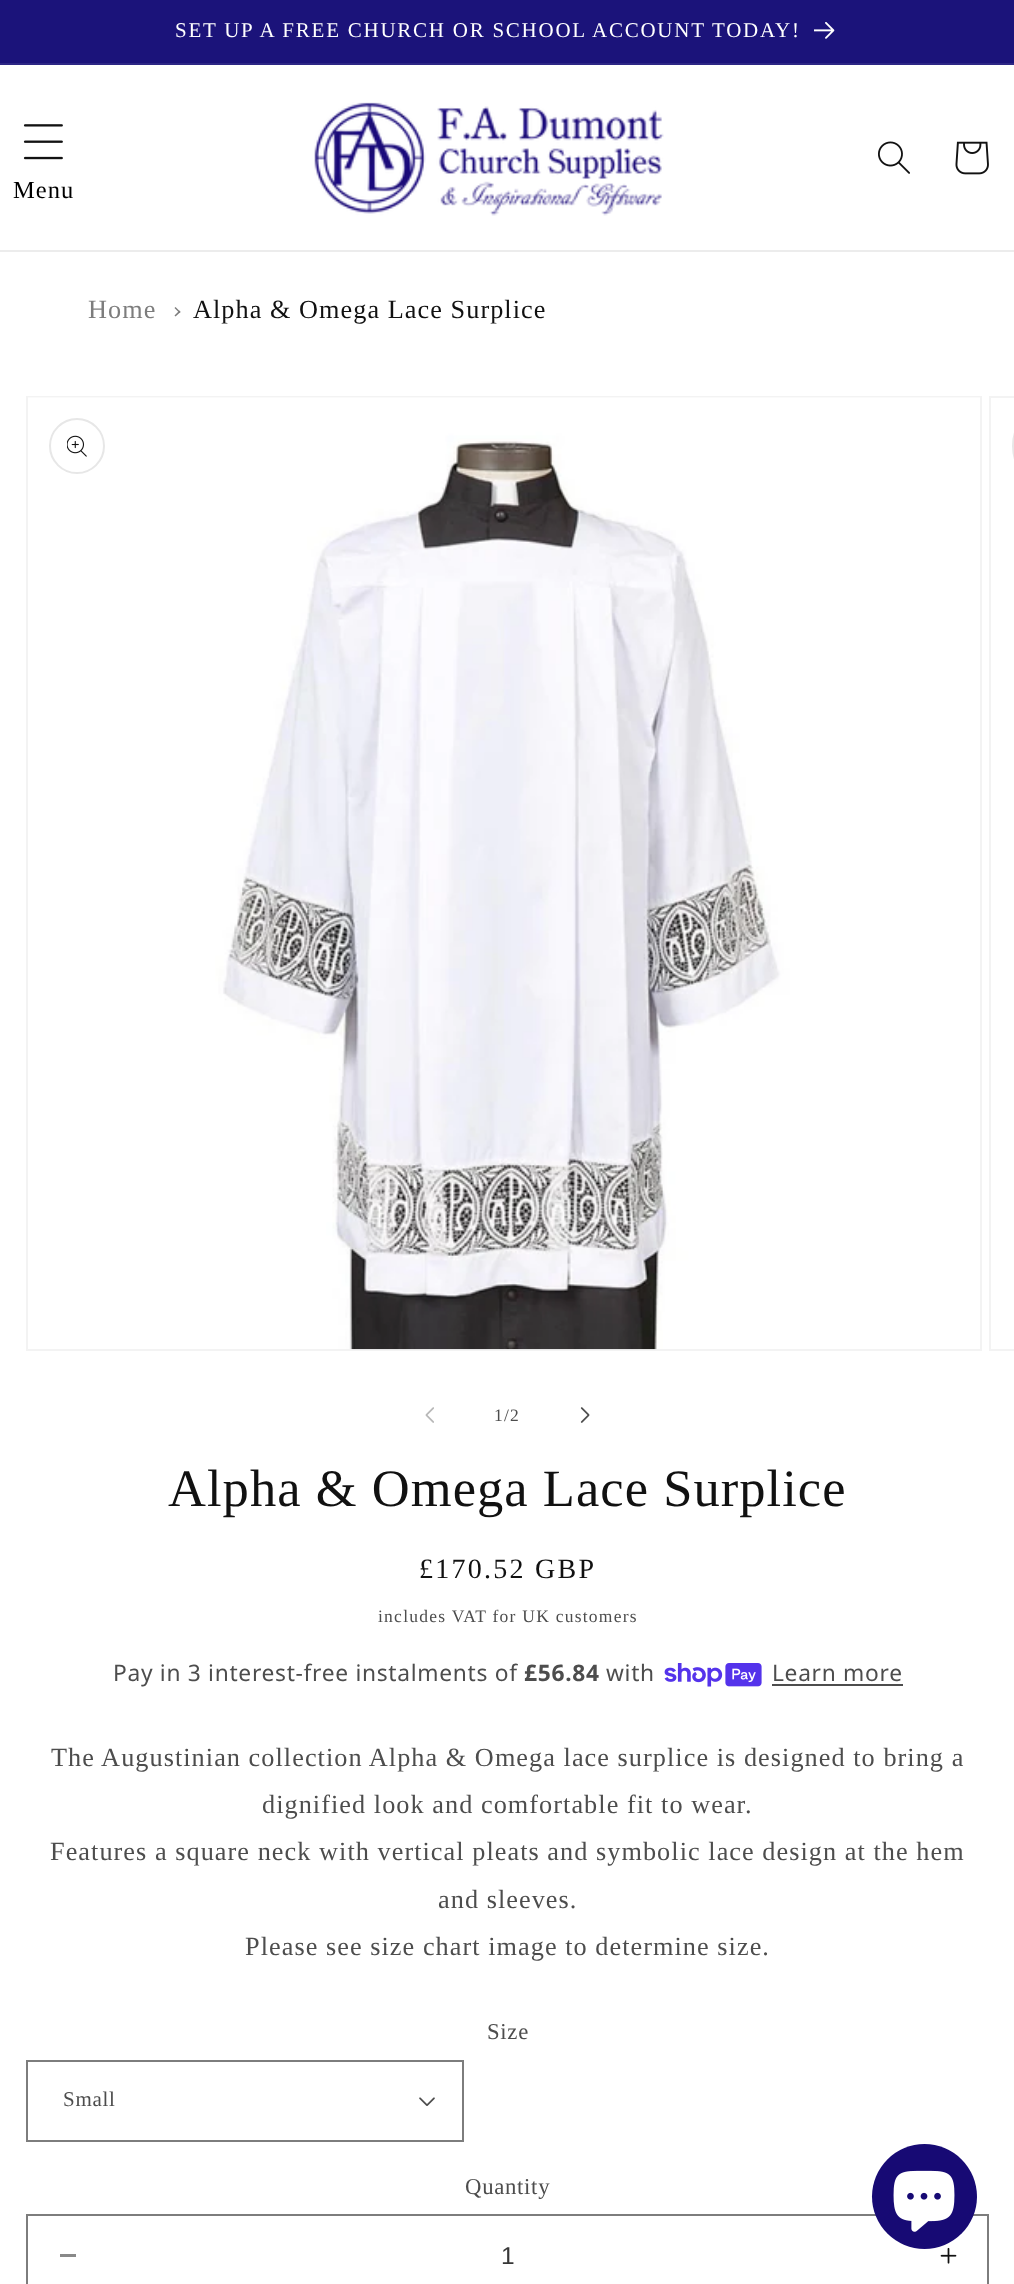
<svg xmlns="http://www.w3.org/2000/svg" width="1014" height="2284">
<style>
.a{font:21px Liberation Serif;letter-spacing:1.75px;fill:#fff}
.b{font:24.5px Liberation Serif;letter-spacing:1.05px;fill:#000}
.c{font:26.25px Liberation Serif;letter-spacing:1.05px;fill:#7d7d7d}
.d{font:26.25px Liberation Serif;letter-spacing:1.05px;fill:#111}
.e{font:17.5px Liberation Serif;letter-spacing:1.25px;fill:#4d4d4d}
.f{font:52.5px Liberation Serif;letter-spacing:1.05px;fill:#111}
.g{font:28px Liberation Serif;letter-spacing:2.25px;fill:#111}
.h{font:22.75px Noto Sans;letter-spacing:0.7px;fill:#4d4d4d}
.i{font:bold 22.75px Noto Sans;letter-spacing:0.7px;fill:#4d4d4d}
.j{font:26.25px Liberation Serif;letter-spacing:1.05px;fill:#4d4d4d}
.k{font:22.75px Liberation Serif;letter-spacing:0.7px;fill:#4d4d4d}
.l{font:21px Liberation Serif;letter-spacing:0.7px;fill:#4d4d4d}
.m{font:24.5px Liberation Sans;fill:#363636}
</style>
<rect width="100%" height="100%" fill="#fff"/>
<path fill="#1b137a" d="M0 0h1014v63H0z"/>
<path fill="#2d2685" d="M0 63h1014v2H0z"/>
<image href="1.png" x="814" y="22" width="21" height="17"/>
<path fill="#ececec" d="M0 250h1014v2H0z"/>
<image href="2.png" x="314" y="102" width="350" height="114"/>
<image href="3.png" x="878" y="141" width="32" height="33"/>
<image href="4.png" x="955" y="141" width="34" height="34"/>
<image href="5.png" x="23" y="124" width="40" height="36"/>
<path fill="#7d7d7d" d="M175.5 307l5 5l-1 1l-5-5z"/>
<path fill="#7d7d7d" d="M179.5 310.5l1 1.5l-5 4.5l-1-1z"/>
<path fill="none" stroke="#f3f3f3" stroke-width="2" d="M27 397h954v953H27z"/>
<image href="6.png" x="28" y="397" width="952" height="953"/>
<circle fill="none" stroke="#e7e7e7" stroke-width="2" cx="77" cy="446" r="27"/>
<image href="7.png" x="67" y="435" width="20" height="22"/>
<path fill="none" stroke="#f3f3f3" stroke-width="2" d="M990 397h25v953H990z"/>
<rect fill="none" stroke="#e7e7e7" stroke-width="2" x="1013" y="419" width="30" height="54" rx="27"/>
<image href="8.png" x="425" y="1407" width="9" height="16"/>
<image href="9.png" x="580" y="1407" width="10" height="16"/>
<image href="10.png" x="664" y="1663" width="98" height="24"/>
<path fill="#4d4d4d" d="M772 1684h131v2H772z"/>
<image href="11.png" x="419" y="2097" width="16" height="9"/>
<path fill="none" stroke="#7d7d7d" stroke-width="2" d="M27 2061h436v80H27z"/>
<path fill="#898989" d="M60 2254h16v3H60z"/>
<image href="12.png" x="940" y="2247" width="17" height="17"/>
<path fill="none" stroke="#7d7d7d" stroke-width="2" d="M27 2215h961v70H27z"/>
<circle fill="#170a74" cx="924.5" cy="2196.5" r="52.5"/>
<image href="13.png" x="893" y="2170" width="62" height="62"/>
<text class="a" x="175" y="37">SET UP A FREE CHURCH OR SCHOOL ACCOUNT TODAY!</text>
<text class="b" x="13" y="198">Menu</text>
<text class="c" x="88" y="318">Home</text>
<text class="d" x="193" y="318">Alpha &amp; Omega Lace Surplice</text>
<text class="e" x="494" y="1421">1/2</text>
<text class="f" x="168" y="1506">Alpha &amp; Omega Lace Surplice</text>
<text class="g" x="419" y="1578">£170.52 GBP</text>
<text class="e" x="378" y="1622">includes VAT for UK customers</text>
<text class="h" x="113" y="1681">Pay in 3 interest-free instalments of</text>
<text class="i" x="524" y="1681">£56.84</text>
<text class="h" x="606" y="1681">with</text>
<text class="h" x="772" y="1681">Learn more</text>
<text class="j" x="51" y="1766">The Augustinian collection Alpha &amp; Omega lace surplice is designed to bring a</text>
<text class="j" x="262" y="1813">dignified look and comfortable fit to wear.</text>
<text class="j" x="50" y="1860">Features a square neck with vertical pleats and symbolic lace design at the hem</text>
<text class="j" x="438" y="1908">and sleeves.</text>
<text class="j" x="245" y="1955">Please see size chart image to determine size.</text>
<text class="k" x="487" y="2039">Size</text>
<text class="l" x="63" y="2106">Small</text>
<text class="k" x="465" y="2194">Quantity</text>
<text class="m" x="501" y="2264">1</text>
</svg>
